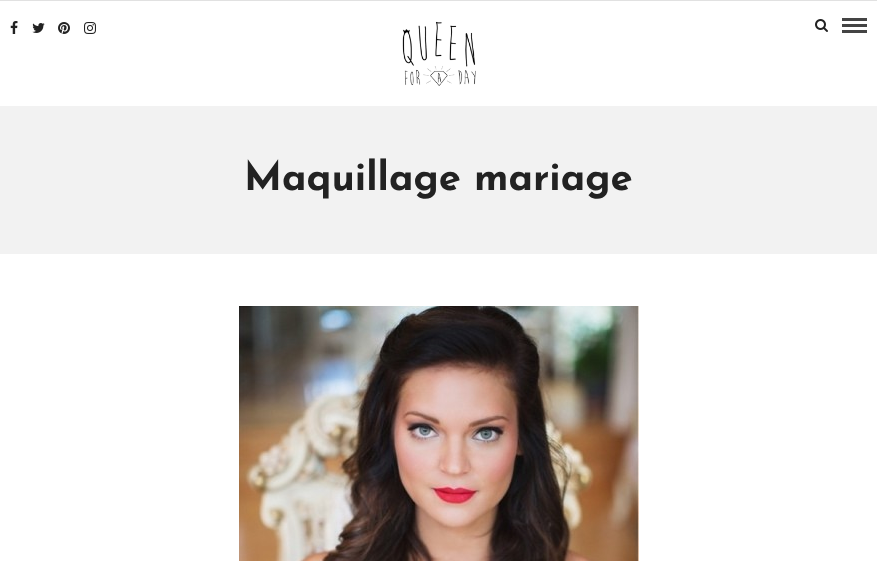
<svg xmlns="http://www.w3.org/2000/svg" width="877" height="561">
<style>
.a{font:bold 40px Josefin Sans;fill:#222}
</style>
<rect width="100%" height="100%" fill="#fff"/>
<path fill="#e1e1e1" d="M0 0h877v1H0z"/>
<image href="1.png" x="10" y="21" width="8" height="13"/>
<image href="2.png" x="32" y="23" width="13" height="10"/>
<image href="3.png" x="58" y="22" width="12" height="12"/>
<image href="4.png" x="84" y="22" width="12" height="12"/>
<image href="5.png" x="815" y="19" width="13" height="13"/>
<path fill="#444" d="M842 18h25v3H842z"/>
<path fill="#444" d="M842 24h25v3H842z"/>
<path fill="#444" d="M842 30h25v3H842z"/>
<image href="6.png" x="402" y="21" width="74" height="65"/>
<path fill="#f2f2f2" d="M0 106h877v148H0z"/>
<image href="7.png" x="239" y="306" width="400" height="255"/>
<text class="a" x="244" y="190">Maquillage mariage</text>
</svg>
